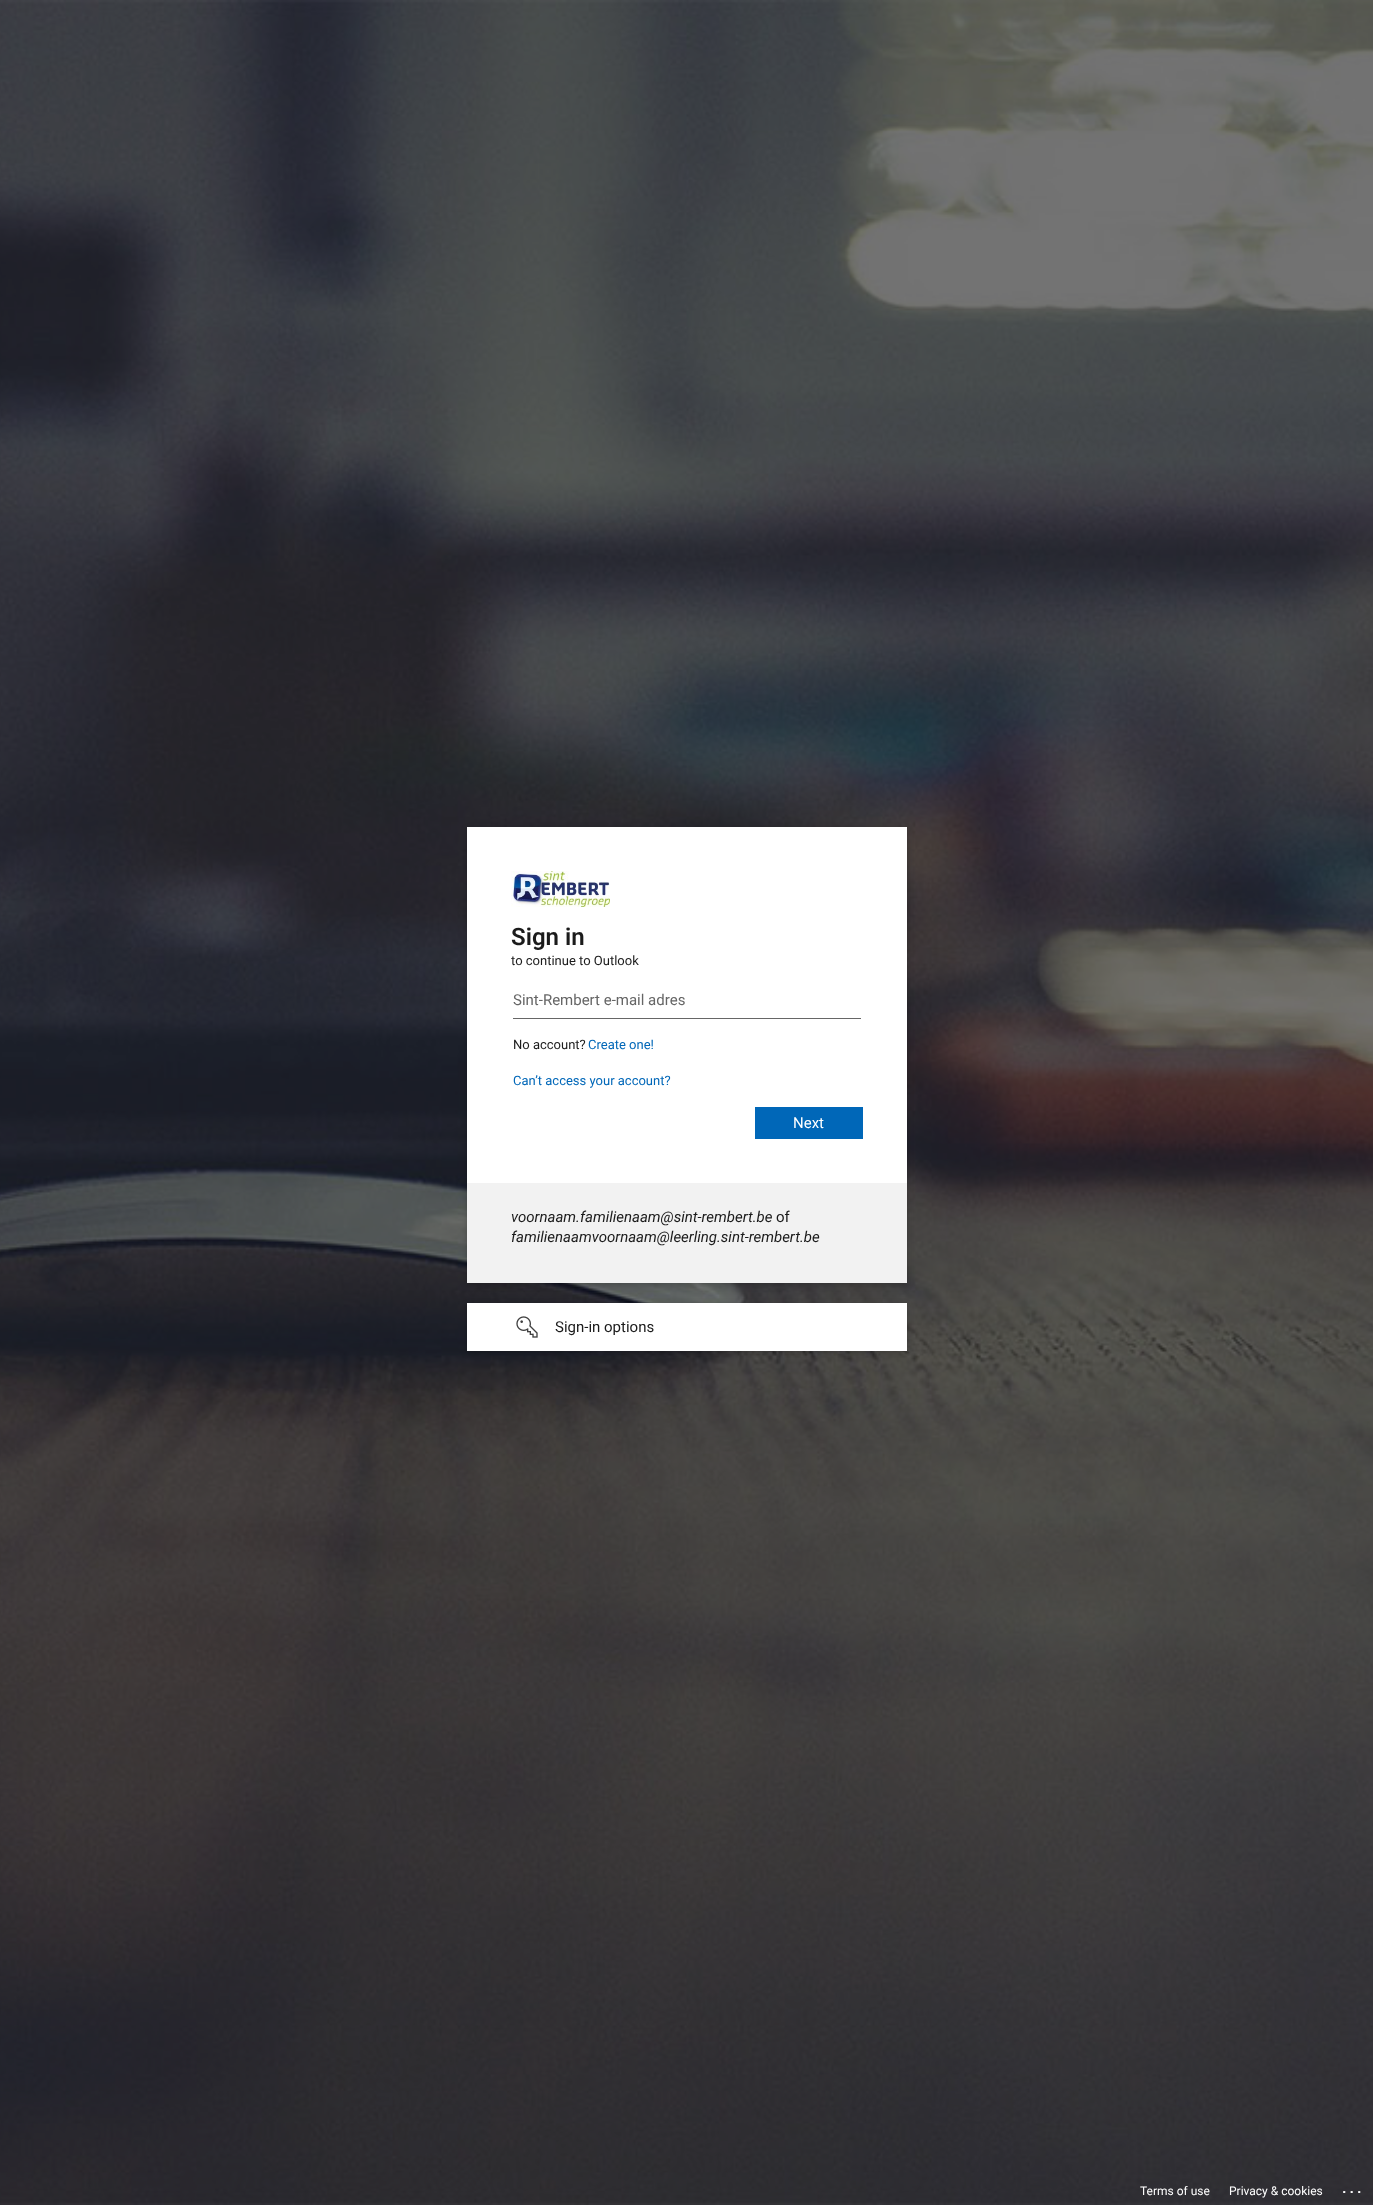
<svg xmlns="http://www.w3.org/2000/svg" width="1373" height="2205">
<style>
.a{font:600 24px Roboto;fill:#1b1b1b}
.b{font:13px Roboto;fill:#1b1b1b}
.c{font:15px Roboto;fill:#666}
.d{font:13px Roboto;fill:#0067b8}
.e{font:15px Roboto;fill:#fff}
.f{font:italic 15px Roboto;fill:#1b1b1b}
.g{font:15px Roboto;fill:#1b1b1b}
.h{font:12px Roboto;fill:#fff}
.i{font:600 16px Roboto;letter-spacing:3px;fill:#fff}
</style>
<rect width="100%" height="100%" fill="#fff"/>
<image href="1.png" x="0" y="0" width="1373" height="2205"/>
<path fill="#00000033" filter="blur(3px)" d="M467 829h440v456H467z"/>
<path fill="#fff" d="M467 827h440v356H467z"/>
<image href="2.png" x="511" y="871" width="99" height="36"/>
<path fill="#666" d="M513 1018h348v1H513z"/>
<path fill="#0067b8" d="M755 1107h108v32H755z"/>
<path fill="#f2f2f2" d="M467 1183h440v100H467z"/>
<path fill="#00000033" filter="blur(3px)" d="M467 1305h440v48H467z"/>
<path fill="#fff" d="M467 1303h440v48H467z"/>
<image href="3.png" x="516" y="1316" width="22" height="22"/>
<text class="a" x="511" y="945">Sign in</text>
<text class="b" x="511" y="965">to continue to Outlook</text>
<text class="c" x="513" y="1005">Sint-Rembert e-mail adres</text>
<text class="b" x="513" y="1049">No account?</text>
<text class="d" x="588" y="1049">Create one!</text>
<text class="d" x="513" y="1085">Can’t access your account?</text>
<text class="e" x="793" y="1128">Next</text>
<text class="f" x="511" y="1222">voornaam.familienaam@sint-rembert.be</text>
<text class="g" x="776" y="1222">of</text>
<text class="f" x="511" y="1242">familienaamvoornaam@leerling.sint-rembert.be</text>
<text class="g" x="555" y="1332">Sign-in options</text>
<text class="h" x="1140" y="2195">Terms of use</text>
<text class="h" x="1229" y="2195">Privacy &amp; cookies</text>
<text class="i" x="1342" y="2193">...</text>
</svg>
